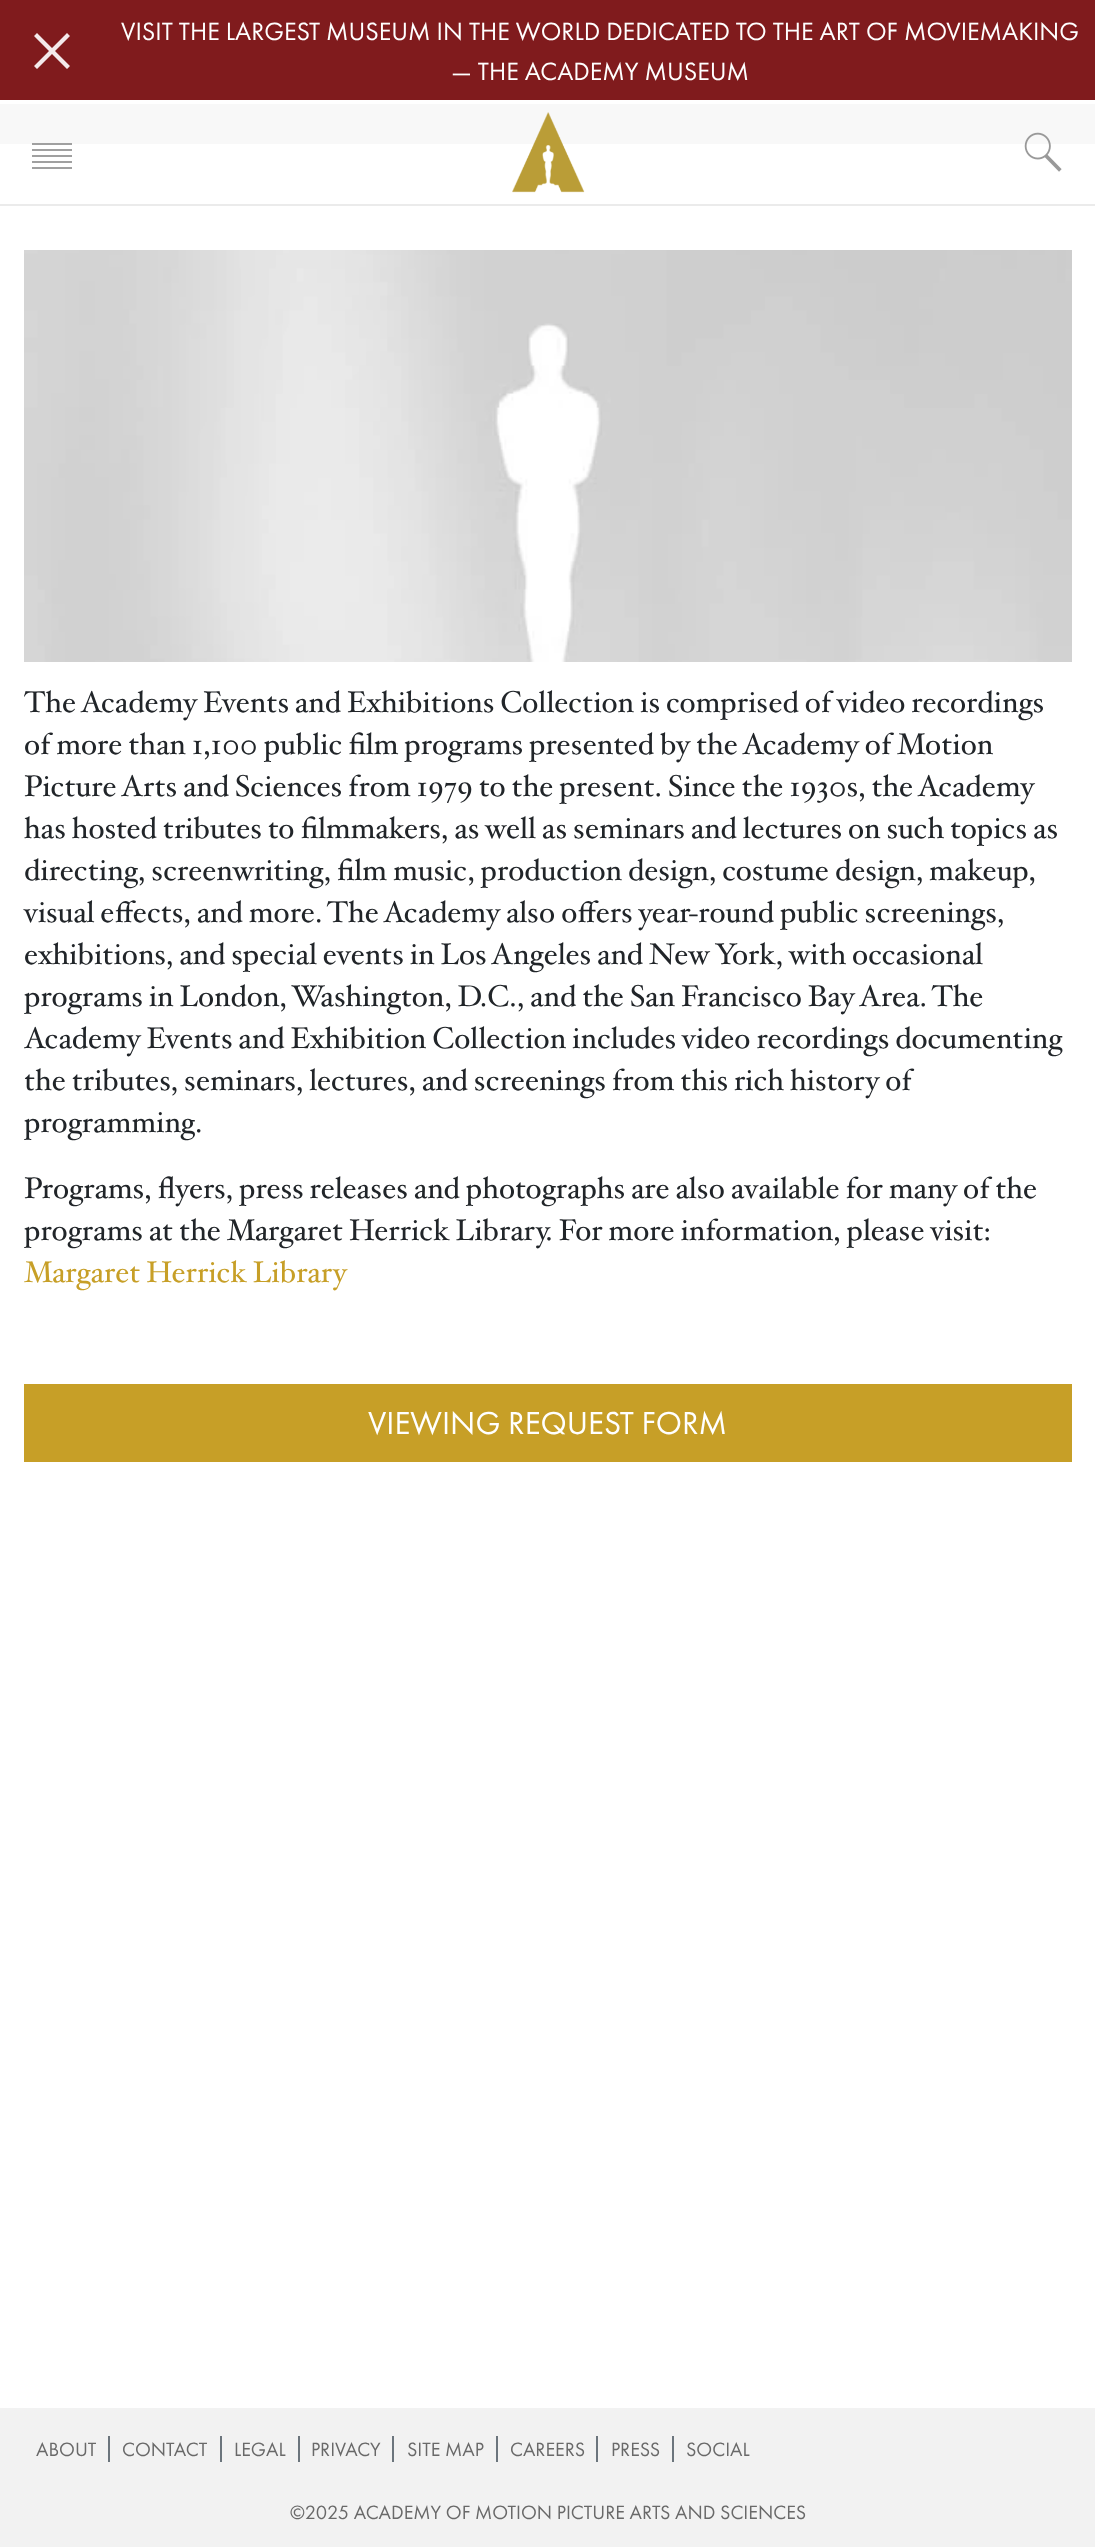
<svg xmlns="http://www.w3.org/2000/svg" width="1095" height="2547">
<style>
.a{font:26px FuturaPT;fill:#fff}
.b{font:300 30px 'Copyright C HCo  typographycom';fill:#212529}
.c{font:300 30px 'Copyright C HCo  typographycom';fill:#c79f27}
.d{font:33px FuturaPT;fill:#fff}
.e{font:20px FuturaPT;fill:#696969}
</style>
<rect width="100%" height="100%" fill="#fff"/>
<path fill="#801b1d" d="M0 0h1095v100H0z"/>
<path fill="#f4eaeb" fill-rule="evenodd" d="M52 54l15 15l3-3l-15-15l15-15l-3-3l-15 15l-15-15l-3 3l15 15l-15 15l3 3z"/>
<path fill="#f8f8f8" d="M0 104h1095v40H0z"/>
<image href="1.png" x="32" y="143" width="40" height="26"/>
<image href="2.png" x="512" y="112" width="73" height="81"/>
<image href="3.png" x="1024" y="132" width="38" height="40"/>
<path fill="#ebebeb" d="M0 204h1095v2H0z"/>
<image href="4.png" x="24" y="250" width="1048" height="412"/>
<path fill="#c79f27" d="M24 1384h1048v78H24z"/>
<path fill="#f2f2f2" d="M0 2408h1095v139H0z"/>
<path fill="#6c757d" d="M108 2436h2v26H108z"/>
<path fill="#6c757d" d="M220 2436h2v26H220z"/>
<path fill="#6c757d" d="M298 2436h2v26H298z"/>
<path fill="#6c757d" d="M392 2436h2v26H392z"/>
<path fill="#6c757d" d="M496 2436h2v26H496z"/>
<path fill="#6c757d" d="M596 2436h2v26H596z"/>
<path fill="#6c757d" d="M672 2436h2v26H672z"/>
<text class="a" x="121" y="40">VISIT THE LARGEST MUSEUM IN THE WORLD DEDICATED TO THE ART OF MOVIEMAKING</text>
<text class="a" x="451" y="80">— THE ACADEMY MUSEUM</text>
<text class="b" x="24" y="712">The Academy Events and Exhibitions Collection is comprised of video recordings</text>
<text class="b" x="24" y="754">of more than 1,100 public film programs presented by the Academy of Motion</text>
<text class="b" x="24" y="796">Picture Arts and Sciences from 1979 to the present. Since the 1930s, the Academy</text>
<text class="b" x="24" y="838">has hosted tributes to filmmakers, as well as seminars and lectures on such topics as</text>
<text class="b" x="24" y="880">directing, screenwriting, film music, production design, costume design, makeup,</text>
<text class="b" x="24" y="922">visual effects, and more. The Academy also offers year-round public screenings,</text>
<text class="b" x="24" y="964">exhibitions, and special events in Los Angeles and New York, with occasional</text>
<text class="b" x="24" y="1006">programs in London, Washington, D.C., and the San Francisco Bay Area. The</text>
<text class="b" x="24" y="1048">Academy Events and Exhibition Collection includes video recordings documenting</text>
<text class="b" x="24" y="1090">the tributes, seminars, lectures, and screenings from this rich history of</text>
<text class="b" x="24" y="1132">programming.</text>
<text class="b" x="24" y="1198">Programs, flyers, press releases and photographs are also available for many of the</text>
<text class="b" x="24" y="1240">programs at the Margaret Herrick Library. For more information, please visit:</text>
<text class="c" x="24" y="1282">Margaret Herrick Library</text>
<text class="d" x="368" y="1434">VIEWING REQUEST FORM</text>
<text class="e" x="36" y="2456">ABOUT</text>
<text class="e" x="122" y="2456">CONTACT</text>
<text class="e" x="234" y="2456">LEGAL</text>
<text class="e" x="311" y="2456">PRIVACY</text>
<text class="e" x="407" y="2456">SITE MAP</text>
<text class="e" x="510" y="2456">CAREERS</text>
<text class="e" x="611" y="2456">PRESS</text>
<text class="e" x="686" y="2456">SOCIAL</text>
<text class="e" x="290" y="2519">©2025 ACADEMY OF MOTION PICTURE ARTS AND SCIENCES</text>
</svg>
